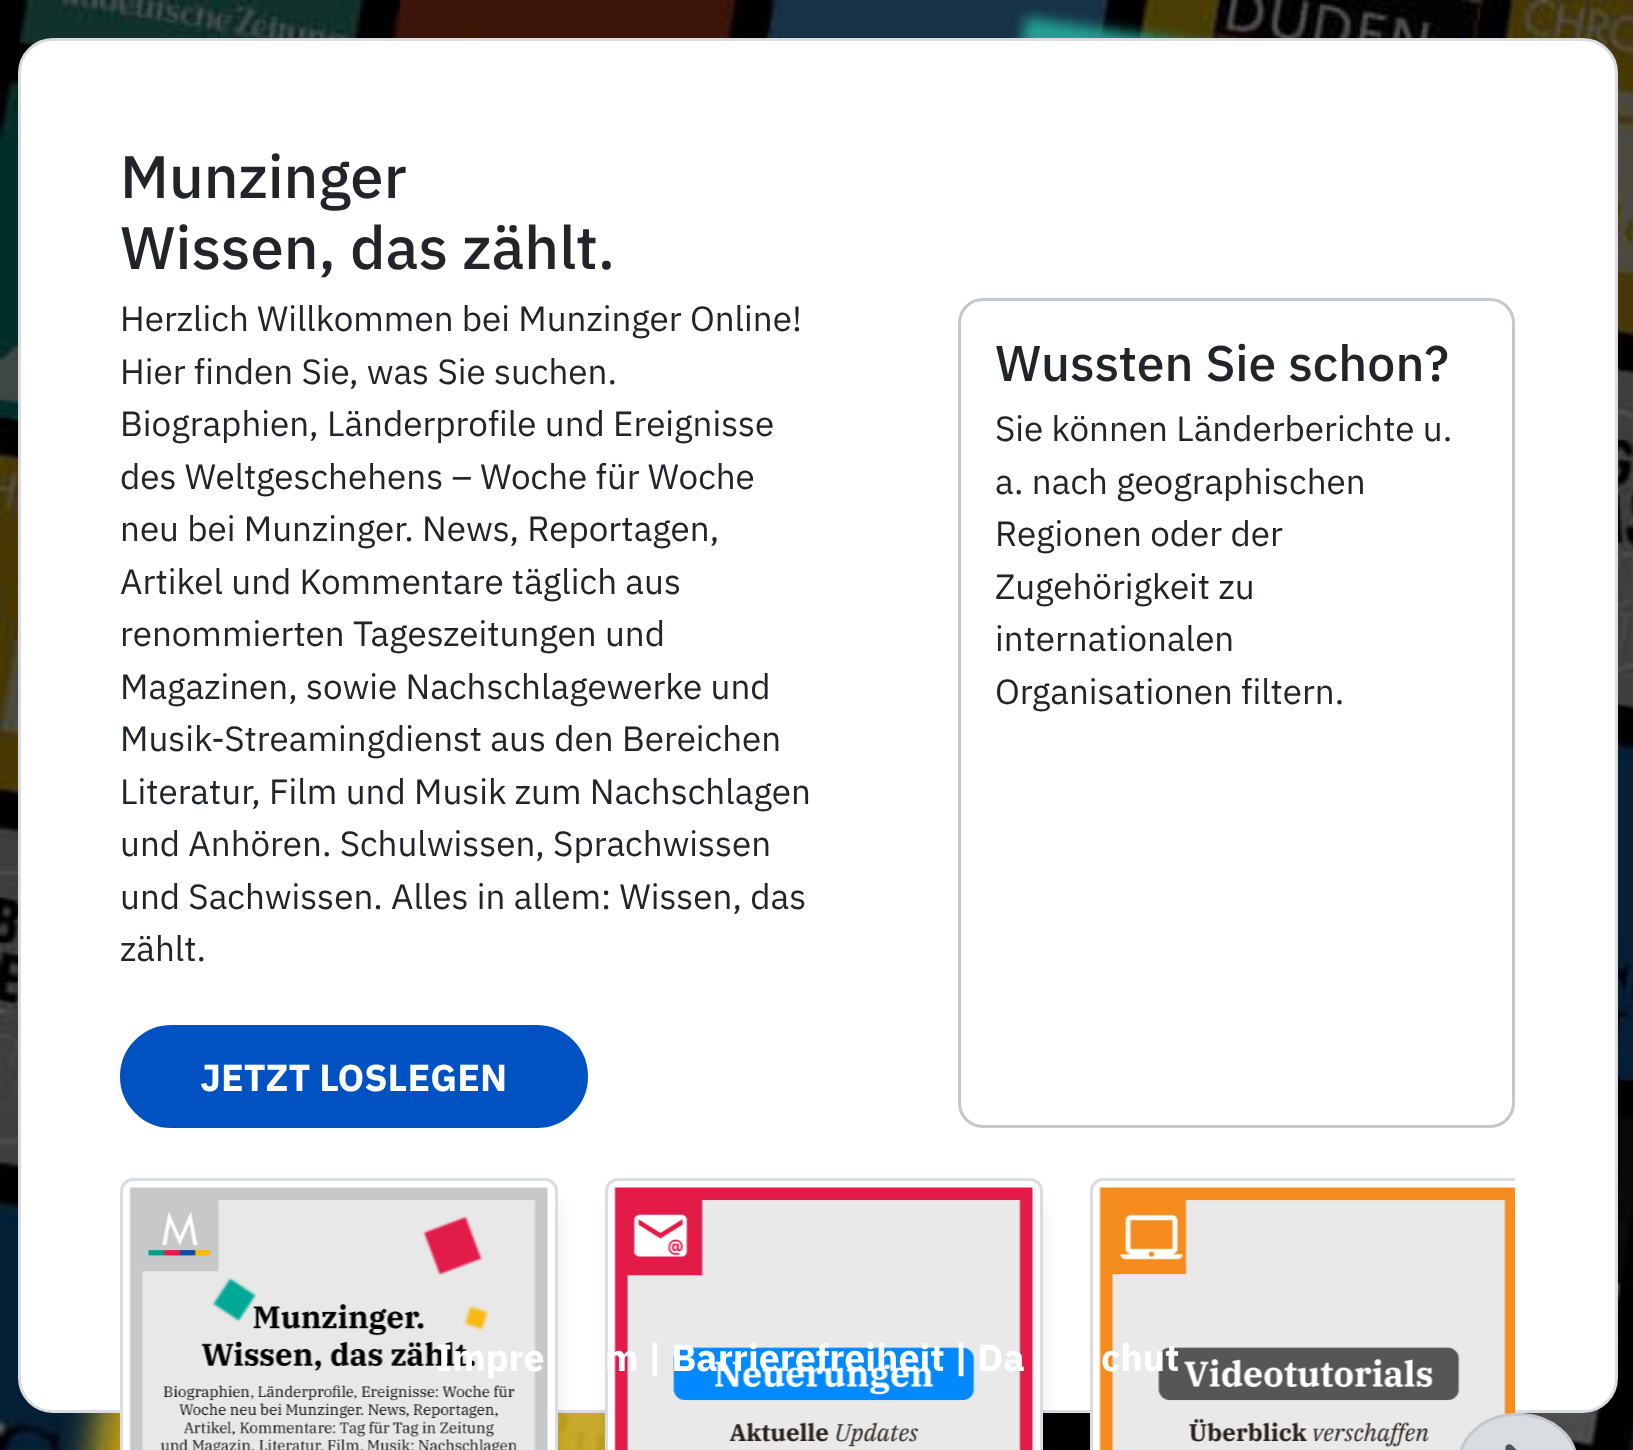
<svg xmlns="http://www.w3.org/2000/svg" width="1633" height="1450">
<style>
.a{font:500 60px IBM Plex Sans;fill:#212529}
.b{font:35px IBM Plex Sans;fill:#212529}
.c{font:bold 37.5px IBM Plex Sans;fill:#fff}
.d{font:500 50px IBM Plex Sans;fill:#212529}
</style>
<defs>
<clipPath id="clip1"><path d="M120 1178h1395v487H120z"/></clipPath>
<clipPath id="clip2"><path d="M120 1178h1395v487H120z"/></clipPath>
</defs>
<rect width="100%" height="100%" fill="#fff"/>
<image href="1.png" x="0" y="0" width="1633" height="1450"/>
<rect fill="#fff" stroke="#d9dce1" stroke-width="3" x="19.5" y="39.5" width="1597" height="1372" rx="33.5"/>
<rect fill="#0052c3" stroke="#0052c3" stroke-width="5" x="122.5" y="1027.5" width="463" height="98" rx="49"/>
<rect fill="none" stroke="#c4c7cb" stroke-width="3" x="959.5" y="299.5" width="554" height="827" rx="23.5"/>
<g clip-path="url(#clip1)">
<path fill="#00000040" filter="blur(11px)" d="M135 1203h413v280H135z"/>
</g>
<rect fill="#fff" stroke="#d9dce1" stroke-width="3" x="121.5" y="1179.5" width="435" height="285" rx="11.5"/>
<image href="2.png" x="129" y="1187" width="419" height="263"/>
<path fill="#00000040" filter="blur(11px)" d="M620 1203h413v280H620z"/>
<rect fill="#fff" stroke="#d9dce1" stroke-width="3" x="606.5" y="1179.5" width="435" height="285" rx="11.5"/>
<image href="3.png" x="614" y="1187" width="419" height="263"/>
<path fill="#fff" d="M1103 1178h412v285h-412c-7 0-13-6-13-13v-259c0-7 6-13 13-13z"/>
<g clip-path="url(#clip2)">
<rect fill="none" stroke="#d9dce1" stroke-width="3" x="1091.5" y="1179.5" width="435" height="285" rx="11.5"/>
</g>
<image href="4.png" x="1099" y="1187" width="416" height="263"/>
<rect fill="#00000080" filter="blur(11px)" x="1473" y="1438" width="95" height="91" rx="46"/>
<rect fill="#d9dce1" stroke="#c4c7cb" stroke-width="3" x="1459.5" y="1414.5" width="117" height="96" rx="57"/>
<image href="5.png" x="1505" y="1444" width="12" height="6"/>
<text class="a" x="120" y="198">Munzinger</text>
<text class="a" x="120" y="269">Wissen, das zählt.</text>
<text class="b" x="120" y="331">Herzlich Willkommen bei Munzinger Online!</text>
<text class="b" x="120" y="384">Hier finden Sie, was Sie suchen.</text>
<text class="b" x="120" y="436">Biographien, Länderprofile und Ereignisse</text>
<text class="b" x="120" y="489">des Weltgeschehens – Woche für Woche</text>
<text class="b" x="120" y="541">neu bei Munzinger. News, Reportagen,</text>
<text class="b" x="120" y="594">Artikel und Kommentare täglich aus</text>
<text class="b" x="120" y="646">renommierten Tageszeitungen und</text>
<text class="b" x="120" y="699">Magazinen, sowie Nachschlagewerke und</text>
<text class="b" x="120" y="751">Musik-Streamingdienst aus den Bereichen</text>
<text class="b" x="120" y="804">Literatur, Film und Musik zum Nachschlagen</text>
<text class="b" x="120" y="856">und Anhören. Schulwissen, Sprachwissen</text>
<text class="b" x="120" y="909">und Sachwissen. Alles in allem: Wissen, das</text>
<text class="b" x="120" y="961">zählt.</text>
<text class="c" x="200" y="1091">JETZT LOSLEGEN</text>
<text class="d" x="995" y="381">Wussten Sie schon?</text>
<text class="b" x="995" y="441">Sie können Länderberichte u.</text>
<text class="b" x="995" y="494">a. nach geographischen</text>
<text class="b" x="995" y="546">Regionen oder der</text>
<text class="b" x="995" y="599">Zugehörigkeit zu</text>
<text class="b" x="995" y="651">internationalen</text>
<text class="b" x="995" y="704">Organisationen filtern.</text>
<text class="c" x="436" y="1371">Impre</text>
<text class="c" x="605" y="1371">m | Barrierefreiheit | Da</text>
<text class="c" x="1101" y="1371">chut</text>
</svg>
